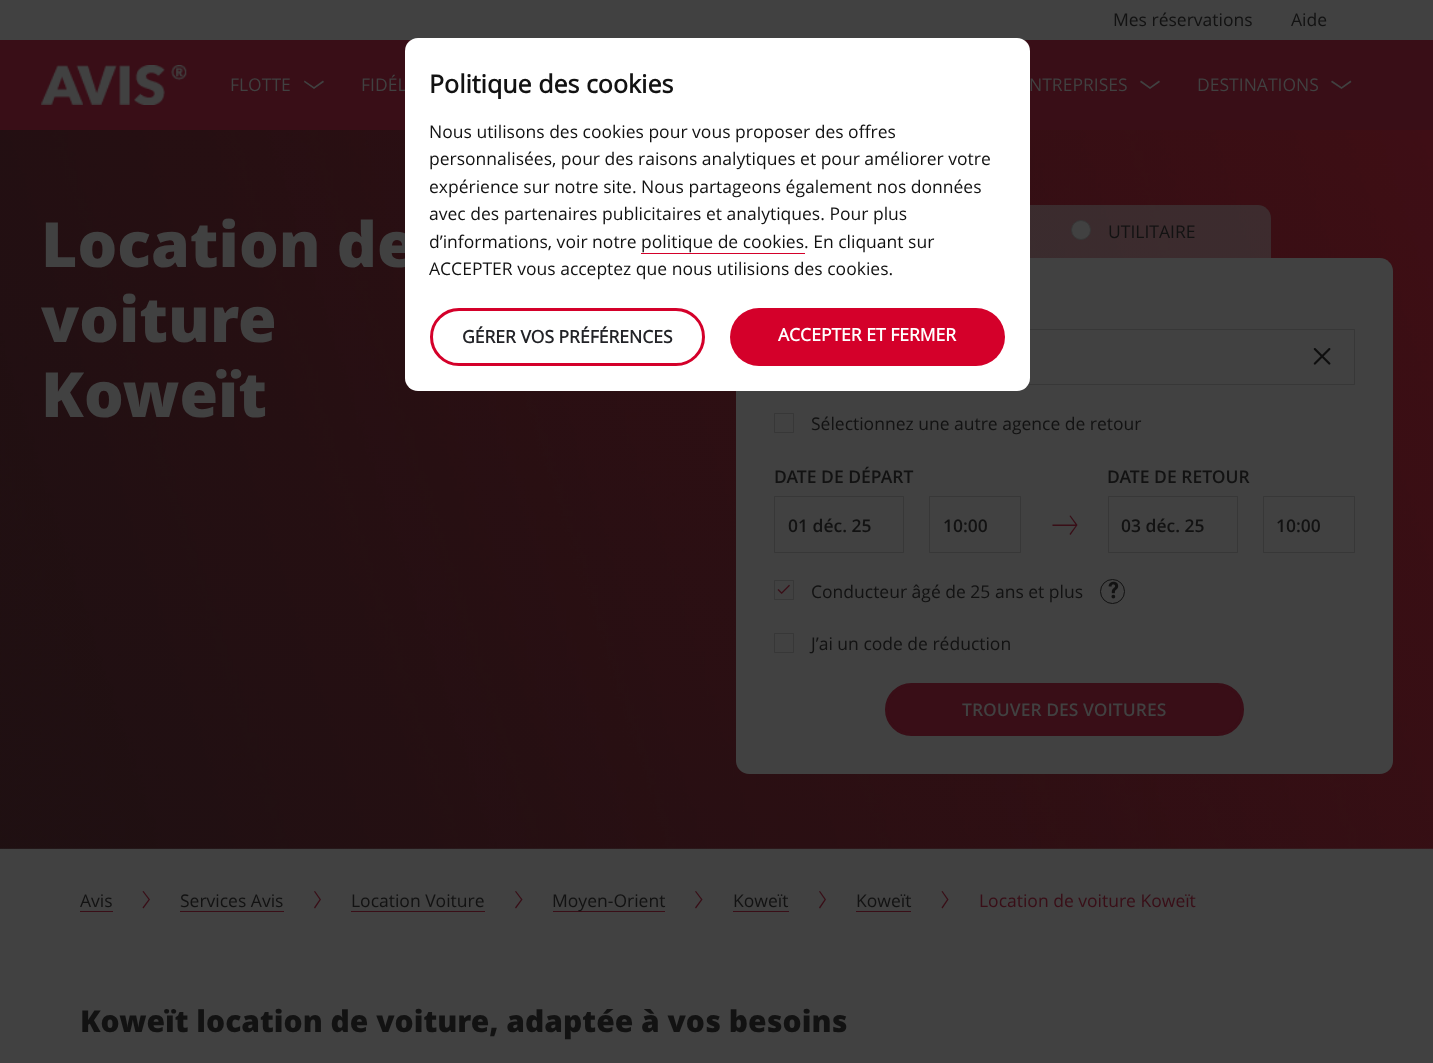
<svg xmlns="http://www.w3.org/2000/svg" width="1433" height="1063">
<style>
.a{font:17.5px Open Sans;fill:#121212}
.b{font:17.5px Open Sans;fill:#414141}
.c{font:800 62.5px Open Sans;fill:#414141}
.d{font:600 17.5px Open Sans;fill:#121212}
.e{font:600 17.5px Open Sans;fill:#414141}
.f{font:17.5px Open Sans;fill:#390e17}
.g{font:800 30px Open Sans;fill:#121212}
.h{font:bold 25px Open Sans;fill:#121212}
.i{font:bold 17.5px Open Sans;fill:#222327}
.j{font:bold 17.5px Open Sans;fill:#fff}
</style>
<defs>
<linearGradient id="g1" gradientUnits="userSpaceOnUse" x1="179" y1="1028" x2="1255" y2="-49"><stop offset="0" stop-color="#121212" stop-opacity="0.4"/><stop offset="1" stop-color="#121212" stop-opacity="0"/></linearGradient>
</defs>
<rect width="100%" height="100%" fill="#414141"/>
<path fill="#390e17" d="M0 40h1433v90H0z"/>
<image href="1.png" x="41" y="65" width="146" height="40"/>
<path fill="#414141" d="M314 89l-10-7l.5-1.5l9.5 6.5l9-6.5l1 1.5z"/>
<path fill="#414141" d="M1150 89l-10-7l1-1.5l9 6.5l9-6.5l1 1.5z"/>
<path fill="#414141" d="M1341.5 89l-10.5-7l1-1.5l9.5 6.5l9-6.5l1 1.5z"/>
<image href="2.png" x="0" y="130" width="1433" height="719"/>
<path fill="url(#g1)" d="M0 130h1433v719H0z"/>
<path fill="#414141" d="M736 258h644c7 0 13 6 13 13v490c0 7-6 13-13 13h-631c-7 0-13-6-13-13z"/>
<path fill="#3f3f3f99" d="M996 205h262c7 0 13 6 13 13v40h-275z"/>
<circle fill="#414141" stroke="#373737" cx="1081" cy="230" r="9.5"/>
<path fill="none" stroke="#373737" d="M774.5 329.5h580v55H774.5z"/>
<image href="3.png" x="1313" y="348" width="18" height="17"/>
<path fill="none" stroke="#373737" d="M774.5 413.5h19v19H774.5z"/>
<path fill="none" stroke="#373737" d="M774.5 496.5h129v56H774.5z"/>
<path fill="none" stroke="#373737" d="M929.5 496.5h91v56H929.5z"/>
<path fill="#390e17" d="M1075.5 524.5l-6-8.5l1-.5l7 9.5l-7 10l-1-1l6-8h-23v-1.5z"/>
<path fill="none" stroke="#373737" d="M1108.5 496.5h129v56H1108.5z"/>
<path fill="none" stroke="#373737" d="M1263.5 496.5h91v56H1263.5z"/>
<path fill="none" stroke="#373737" d="M774.5 580.5h19v19H774.5z"/>
<circle fill="none" stroke="#121212" cx="1112.5" cy="591.5" r="12"/>
<image href="4.png" x="1108" y="581" width="11" height="18"/>
<image href="5.png" x="777" y="584" width="13" height="10"/>
<path fill="none" stroke="#373737" d="M774.5 633.5h19v19H774.5z"/>
<rect fill="#390e17" stroke="#390e17" stroke-width="3" x="886.5" y="684.5" width="356" height="50" rx="25"/>
<path fill="#390e17" d="M80 911h33v1H80z"/>
<path fill="#390e17" d="M143.5 908.5l-1-1l6-8l-6-8l1-.5l6.5 8.5z"/>
<path fill="#390e17" d="M180 911h104v1H180z"/>
<path fill="#390e17" d="M315 908.5l-1-1l5.5-8l-5.5-8l1-.5l6 8.5z"/>
<path fill="#390e17" d="M351 911h134v1H351z"/>
<path fill="#390e17" d="M516 908.5l-1-1l6-8l-6-8l1-.5l6.5 8.5z"/>
<path fill="#390e17" d="M553 911h112v1H553z"/>
<path fill="#390e17" d="M696 908.5l-1-1l6-8l-6-8l1-.5l6.5 8.5z"/>
<path fill="#390e17" d="M733 911h56v1H733z"/>
<path fill="#390e17" d="M820 908.5l-1-1l5.5-8l-5.5-8l1-.5l6 8.5z"/>
<path fill="#390e17" d="M856 911h55v1H856z"/>
<path fill="#390e17" d="M942.5 908.5l-1-1l5.5-8l-5.5-8l1-.5l6 8.5z"/>
<text class="a" x="1113" y="26">Mes réservations</text>
<text class="a" x="1291" y="26">Aide</text>
<text class="b" x="230" y="91">FLOTTE</text>
<text class="b" x="361" y="91">FIDÉL</text>
<text class="b" x="1029" y="91">NTREPRISES</text>
<text class="b" x="1197" y="91">DESTINATIONS</text>
<text class="c" x="41" y="267">Location de</text>
<text class="c" x="41" y="342">voiture</text>
<text class="c" x="41" y="417">Koweït</text>
<text class="a" x="1108" y="238">UTILITAIRE</text>
<text class="a" x="811" y="430">Sélectionnez une autre agence de retour</text>
<text class="d" x="774" y="483">DATE DE DÉPART</text>
<text class="d" x="788" y="532">01 déc. 25</text>
<text class="d" x="943" y="532">10:00</text>
<text class="d" x="1107" y="483">DATE DE RETOUR</text>
<text class="d" x="1121" y="532">03 déc. 25</text>
<text class="d" x="1276" y="532">10:00</text>
<text class="a" x="811" y="598">Conducteur âgé de 25 ans et plus</text>
<text class="a" x="811" y="650">J’ai un code de réduction</text>
<text class="e" x="962" y="716">TROUVER DES VOITURES</text>
<text class="a" x="80" y="907">Avis</text>
<text class="a" x="180" y="907">Services Avis</text>
<text class="a" x="351" y="907">Location Voiture</text>
<text class="a" x="552" y="907">Moyen-Orient</text>
<text class="a" x="733" y="907">Koweït</text>
<text class="a" x="856" y="907">Koweït</text>
<text class="f" x="979" y="907">Location de voiture Koweït</text>
<text class="g" x="80" y="1032">Koweït location de voiture, adaptée à vos besoins</text>
<rect fill="#fff" x="405" y="38" width="625" height="353" rx="13"/>
<text class="h" x="429" y="93">Politique des cookies</text>
<text class="a" x="429" y="138">Nous utilisons des cookies pour vous proposer des offres</text>
<text class="a" x="429" y="165">personnalisées, pour des raisons analytiques et pour améliorer votre</text>
<text class="a" x="429" y="193">expérience sur notre site. Nous partageons également nos données</text>
<text class="a" x="429" y="220">avec des partenaires publicitaires et analytiques. Pour plus</text>
<text class="a" x="429" y="248">d’informations, voir notre politique de cookies. En cliquant sur</text>
<path fill="#d4002a" d="M641 253h164v1H641z"/>
<text class="a" x="429" y="275">ACCEPTER vous acceptez que nous utilisions des cookies.</text>
<rect fill="none" stroke="#d4002a" stroke-width="3" x="431.5" y="309.5" width="272" height="55" rx="27.5"/>
<text class="i" x="462" y="343">GÉRER VOS PRÉFÉRENCES</text>
<rect fill="#d4002a" x="730" y="308" width="275" height="58" rx="29"/>
<text class="j" x="778" y="341">ACCEPTER ET FERMER</text>
</svg>
